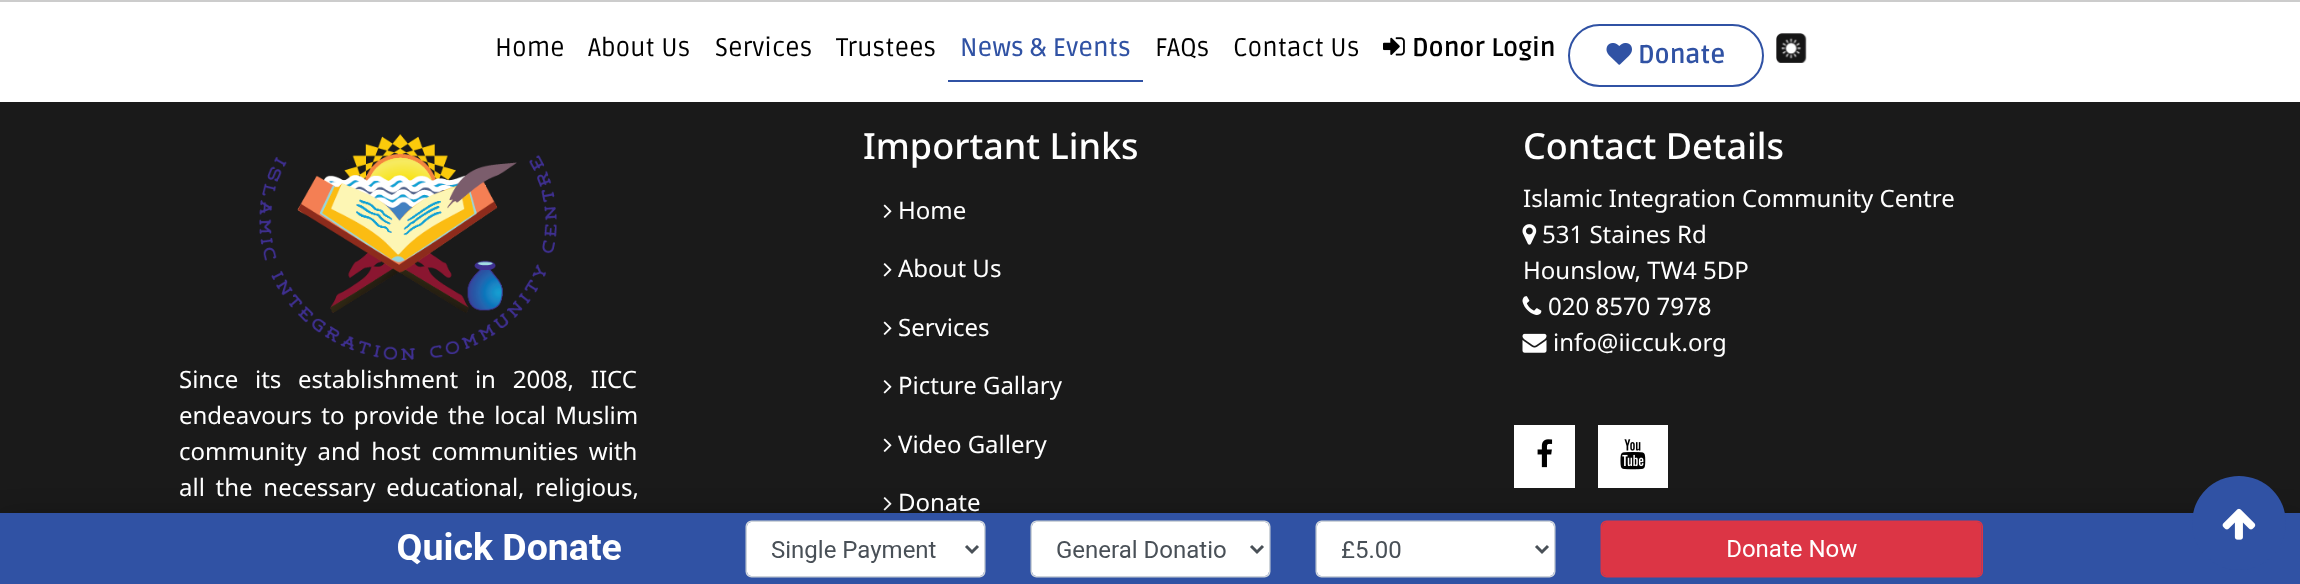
<svg xmlns="http://www.w3.org/2000/svg" width="2300" height="584">
<style>
.a{font:25.5px Ruda;fill:#000}
.b{font:500 25.5px Ruda;fill:#3052a4}
.c{font:bold 25.5px Ruda;fill:#000}
.d{font:bold 25.5px Ruda;fill:#3052a4}
.e{font:500 36px Noto Sans;fill:#fff}
.f{font:24px Noto Sans;fill:#fff}
</style>
<rect width="100%" height="100%" fill="#1a1a1a"/>
<path fill="#fff" d="M0 2h2300v100H0z"/>
<path fill="#ccc" d="M0 0h2300v2H0z"/>
<path fill="#3052a4" d="M948 80h195v2H948z"/>
<image href="1.png" x="1383" y="37" width="22" height="19"/>
<rect fill="none" stroke="#3052a4" stroke-width="2" x="1569" y="25" width="194" height="61" rx="30.5"/>
<image href="2.png" x="1606" y="43" width="26" height="22"/>
<image href="3.png" x="1776" y="33" width="31" height="30"/>
<image href="4.png" x="883" y="204" width="9" height="14"/>
<image href="5.png" x="883" y="263" width="9" height="14"/>
<image href="4.png" x="883" y="321" width="9" height="14"/>
<image href="5.png" x="883" y="380" width="9" height="14"/>
<image href="4.png" x="883" y="438" width="9" height="14"/>
<image href="5.png" x="883" y="497" width="9" height="14"/>
<image href="6.png" x="1522" y="224" width="15" height="21"/>
<image href="7.png" x="1522" y="296" width="20" height="19"/>
<image href="8.png" x="1522" y="333" width="25" height="20"/>
<path fill="#fff" d="M1514 425h61v63H1514z"/>
<image href="9.png" x="1537" y="439" width="16" height="29"/>
<path fill="#fff" d="M1598 425h70v63H1598z"/>
<image href="10.png" x="1620" y="439" width="26" height="31"/>
<image href="11.png" x="259" y="134" width="298" height="226"/>
<path fill="#00000066" filter="blur(15px)" d="M0 522h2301v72H0z"/>
<image href="12.png" x="0" y="513" width="2300" height="71"/>
<circle fill="#3052a4" cx="2239" cy="523" r="47"/>
<image href="13.png" x="2222" y="508" width="34" height="32"/>
<text class="a" x="495" y="56">Home</text>
<text class="a" x="588" y="56">About Us</text>
<text class="a" x="715" y="56">Services</text>
<text class="a" x="836" y="56">Trustees</text>
<text class="b" x="960" y="56">News &amp; Events</text>
<text class="a" x="1155" y="56">FAQs</text>
<text class="a" x="1233" y="56">Contact Us</text>
<text class="c" x="1412" y="56">Donor Login</text>
<text class="d" x="1638" y="63">Donate</text>
<text class="e" x="863" y="159">Important Links</text>
<text class="f" x="898" y="219">Home</text>
<text class="f" x="898" y="277">About Us</text>
<text class="f" x="898" y="336">Services</text>
<text class="f" x="898" y="394">Picture Gallary</text>
<text class="f" x="898" y="453">Video Gallery</text>
<text class="f" x="898" y="511">Donate</text>
<text class="e" x="1523" y="159">Contact Details</text>
<text class="f" x="1523" y="207">Islamic Integration Community Centre</text>
<text class="f" x="1542" y="243">531 Staines Rd</text>
<text class="f" x="1523" y="279">Hounslow, TW4 5DP</text>
<text class="f" x="1548" y="315">020 8570 7978</text>
<text class="f" x="1553" y="351">info@iiccuk.org</text>
<text class="f" x="179" y="388" word-spacing="10.5">Since its establishment in 2008, IICC</text>
<text class="f" x="179" y="424" word-spacing="3">endeavours to provide the local Muslim</text>
<text class="f" x="179" y="460" word-spacing="4.5">community and host communities with</text>
<text class="f" x="179" y="496" word-spacing="4.5">all the necessary educational, religious,</text>
</svg>
